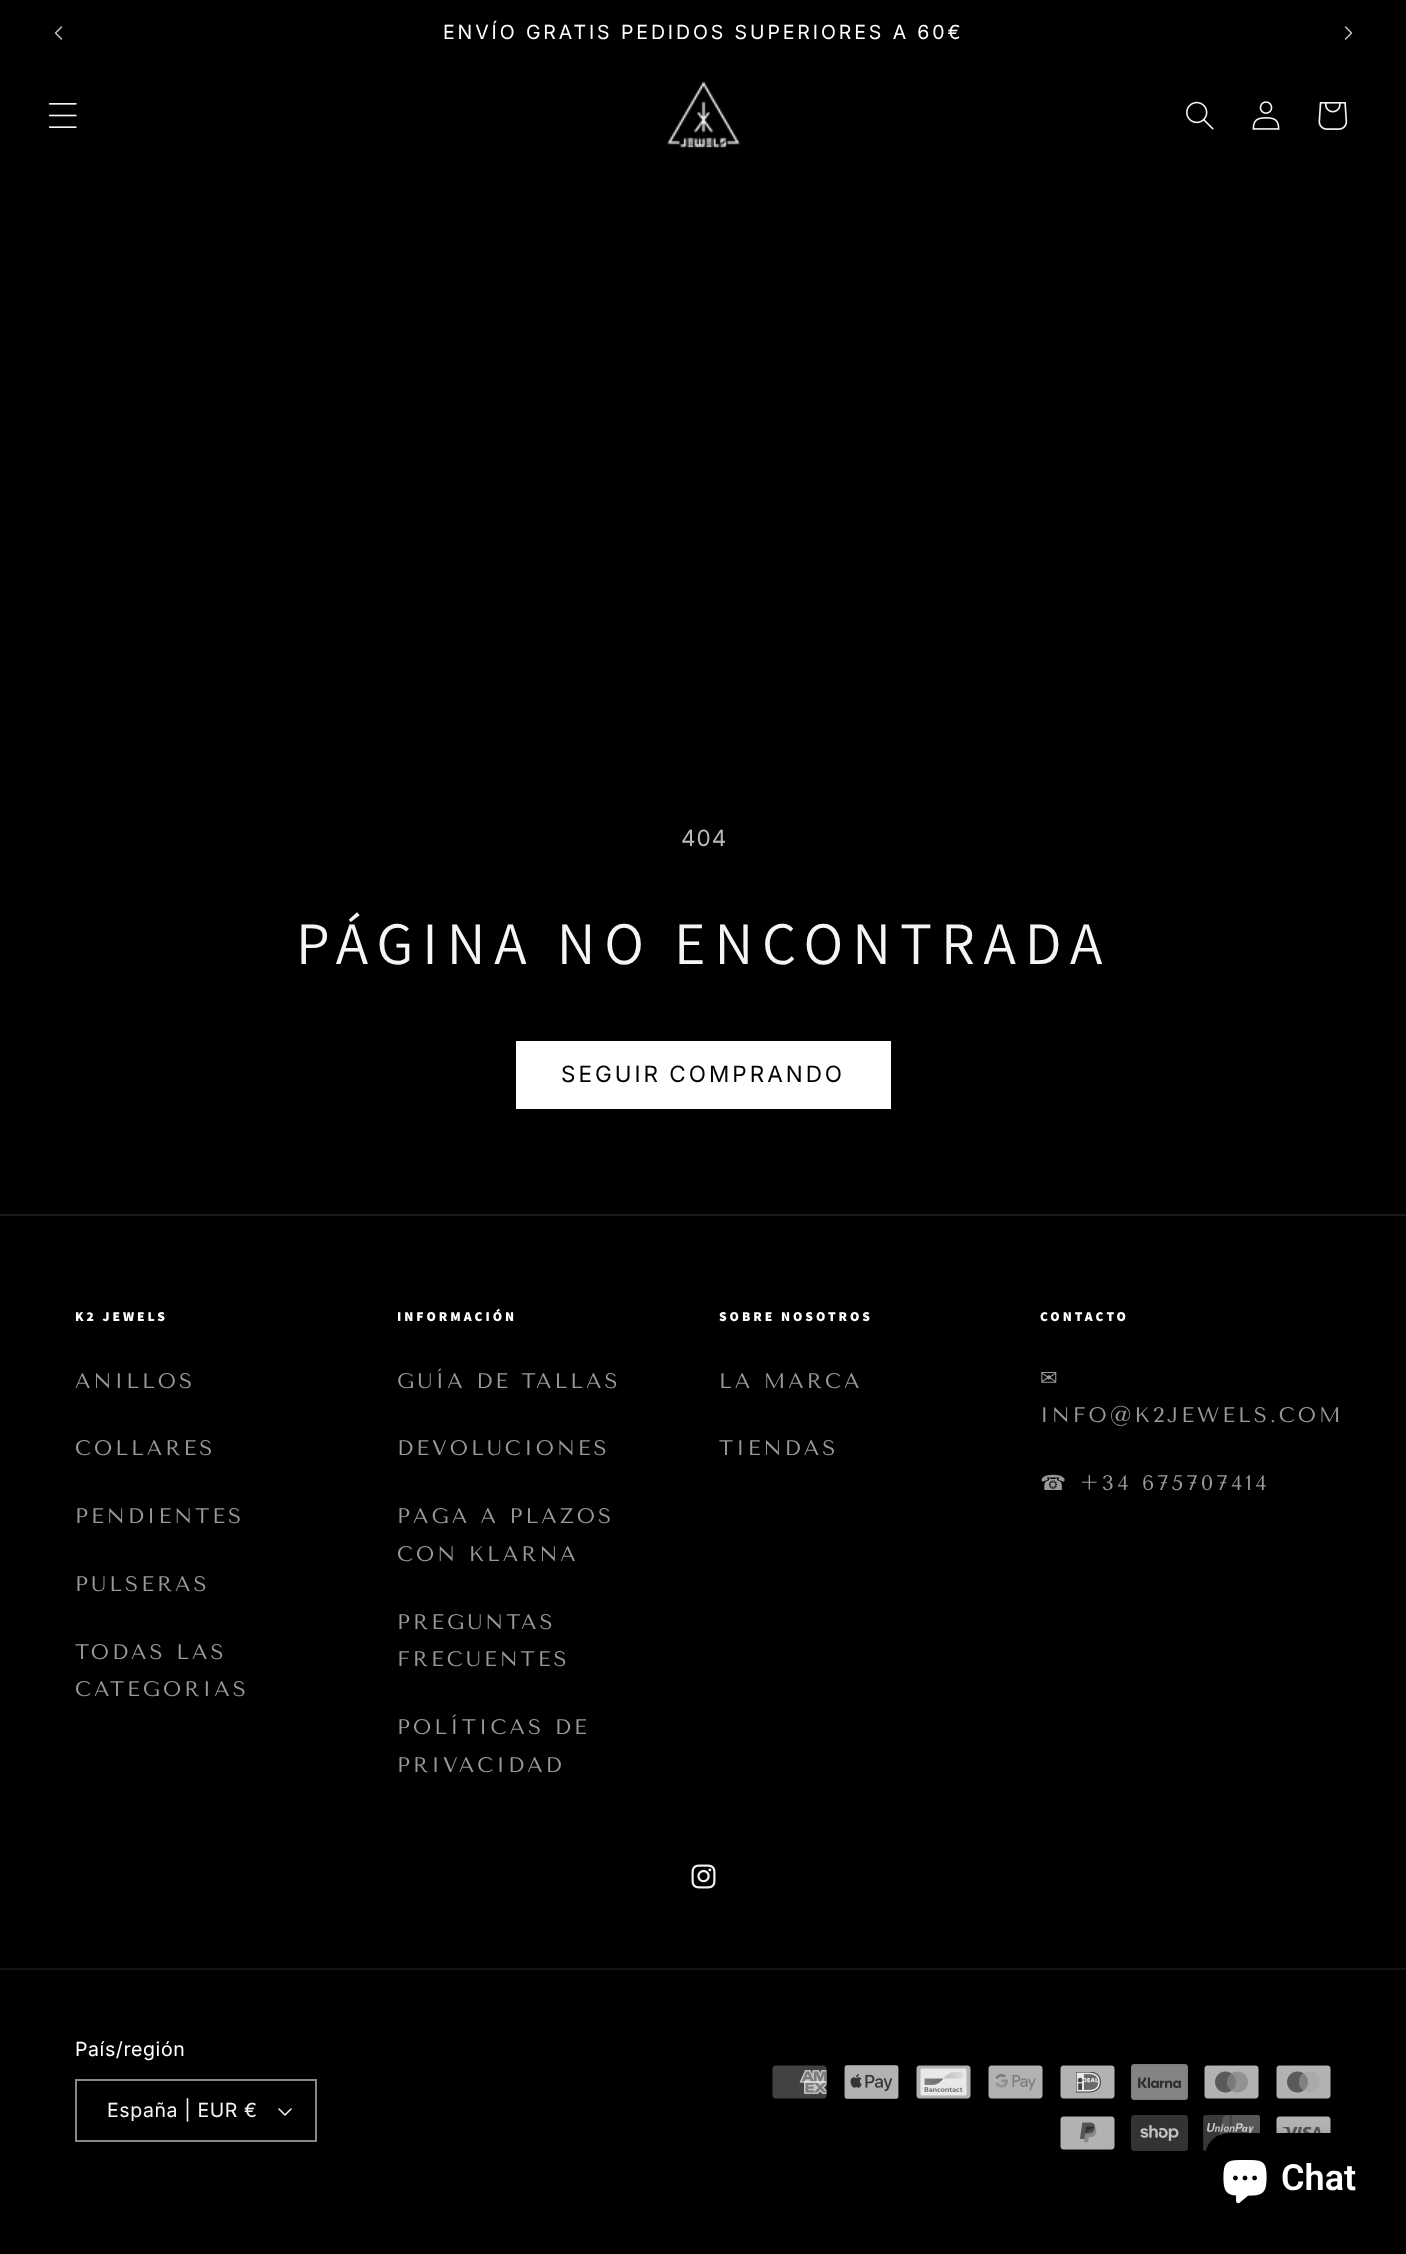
<svg xmlns="http://www.w3.org/2000/svg" width="1406" height="2254">
<style>
.a{font:19.5px Inter;letter-spacing:2.9px;fill:#fff}
.b{font:22.5px Inter;letter-spacing:1px;fill:#b8b8b8}
.c{font:60px Assistant;letter-spacing:9px;fill:#f5f5f5}
.d{font:22.5px Inter;letter-spacing:3px;fill:#000}
.e{font:800 13.5px Assistant;letter-spacing:3px;fill:#fff}
.f{font:21px Tenor Sans;letter-spacing:3.1px;fill:#999}
.g{font:21px DejaVu Sans;letter-spacing:3.1px;fill:#999}
.h{font:19.5px Inter;letter-spacing:0.6px;fill:#fff}
.i{font:19.5px Inter;letter-spacing:0.6px;fill:#f5f5f5}
.j{font:600 36px Roboto;fill:#fff}
</style>
<rect width="100%" height="100%" fill="#000"/>
<image href="1.png" x="54" y="26" width="9" height="14"/>
<image href="2.png" x="1344" y="26" width="9" height="14"/>
<image href="3.png" x="48" y="103" width="29" height="25"/>
<image href="4.png" x="667" y="81" width="73" height="67"/>
<image href="5.png" x="1186" y="101" width="28" height="29"/>
<image href="6.png" x="1252" y="101" width="28" height="29"/>
<image href="7.png" x="1318" y="102" width="30" height="28"/>
<path fill="#fff" d="M516 1041h375v68H516z"/>
<path fill="#1a1a1a" d="M0 1214h1406v2H0z"/>
<image href="8.png" x="691" y="1864" width="25" height="25"/>
<path fill="#141414" d="M0 1968h1406v2H0z"/>
<image href="9.png" x="278" y="2108" width="14" height="8"/>
<path fill="none" stroke="#878787" stroke-width="2" d="M76 2080h240v61H76z"/>
<image href="10.png" x="772" y="2065" width="55" height="34"/>
<image href="11.png" x="844" y="2065" width="55" height="34"/>
<image href="12.png" x="916" y="2065" width="55" height="34"/>
<image href="13.png" x="988" y="2065" width="55" height="34"/>
<image href="14.png" x="1060" y="2065" width="55" height="34"/>
<image href="15.png" x="1131" y="2064" width="57" height="36"/>
<image href="16.png" x="1204" y="2065" width="55" height="34"/>
<image href="17.png" x="1276" y="2065" width="55" height="34"/>
<image href="18.png" x="1060" y="2116" width="55" height="34"/>
<image href="19.png" x="1131" y="2115" width="57" height="36"/>
<image href="20.png" x="1203" y="2115" width="57" height="36"/>
<image href="21.png" x="1276" y="2116" width="55" height="17"/>
<rect fill="#00000026" filter="blur(4px)" x="1205" y="2133" width="169" height="90" rx="24"/>
<rect fill="#000" x="1205" y="2133" width="169" height="90" rx="24"/>
<image href="22.png" x="1223" y="2160" width="44" height="44"/>
<text class="a" x="443" y="39">ENVÍO GRATIS PEDIDOS SUPERIORES A 60€</text>
<text class="b" x="681" y="846">404</text>
<text class="c" x="296" y="964">PÁGINA NO ENCONTRADA</text>
<text class="d" x="561" y="1082" word-spacing="-1">SEGUIR COMPRANDO</text>
<text class="e" x="75" y="1321">K2 JEWELS</text>
<text class="f" x="75" y="1388">ANILLOS</text>
<text class="f" x="75" y="1455">COLLARES</text>
<text class="f" x="75" y="1523">PENDIENTES</text>
<text class="f" x="75" y="1591">PULSERAS</text>
<text class="f" x="75" y="1659">TODAS LAS</text>
<text class="f" x="75" y="1696">CATEGORIAS</text>
<text class="e" x="397" y="1321">INFORMACIÓN</text>
<text class="f" x="397" y="1388">GUÍA DE TALLAS</text>
<text class="f" x="397" y="1455">DEVOLUCIONES</text>
<text class="f" x="397" y="1523">PAGA A PLAZOS</text>
<text class="f" x="397" y="1561">CON KLARNA</text>
<text class="f" x="397" y="1629">PREGUNTAS</text>
<text class="f" x="397" y="1666">FRECUENTES</text>
<text class="f" x="397" y="1734">POLÍTICAS DE</text>
<text class="f" x="397" y="1772">PRIVACIDAD</text>
<text class="e" x="719" y="1321">SOBRE NOSOTROS</text>
<text class="f" x="719" y="1388">LA MARCA</text>
<text class="f" x="719" y="1455">TIENDAS</text>
<text class="e" x="1040" y="1321">CONTACTO</text>
<text class="g" x="1040" y="1385">✉</text>
<text class="f" x="1040" y="1422">INFO@K2JEWELS.COM</text>
<text class="g" x="1040" y="1490">☎</text>
<text class="f" x="1080" y="1490">+34 675707414</text>
<text class="h" x="75" y="2056">País/región</text>
<text class="i" x="107" y="2117">España | EUR €</text>
<text class="j" x="1281" y="2190">Chat</text>
</svg>
